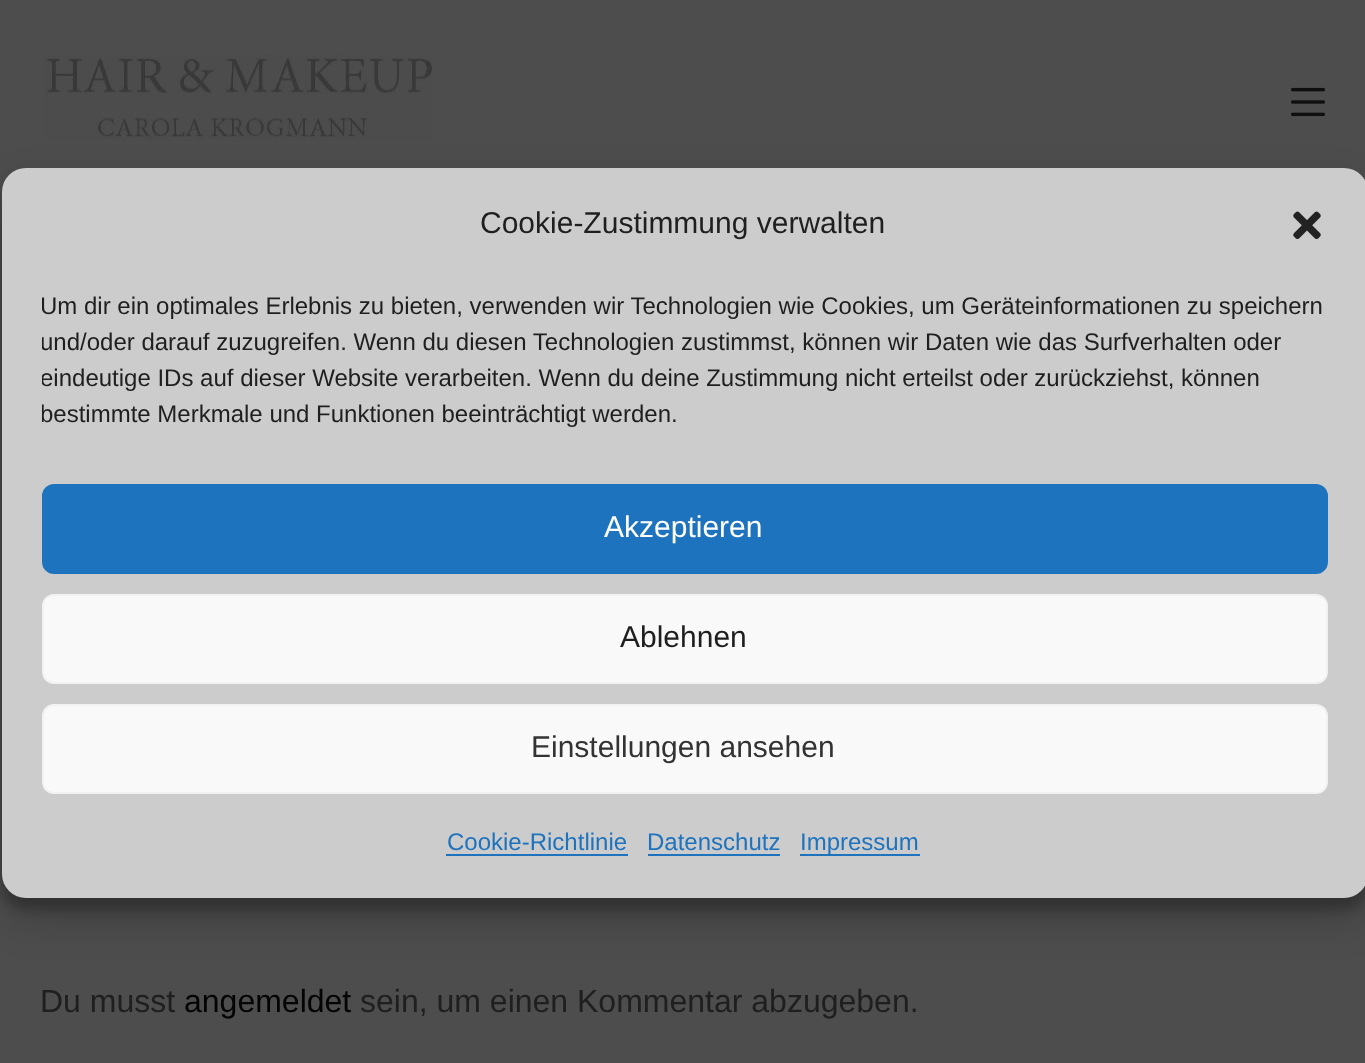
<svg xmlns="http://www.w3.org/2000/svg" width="1365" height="1063">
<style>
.a{font:30px Liberation Sans;fill:#1f1f1f}
.b{font:24px Liberation Sans;fill:#1f1f1f}
.c{font:30px Liberation Sans;fill:#fff}
.d{font:30px Liberation Sans;fill:#333}
.e{font:24px Liberation Sans;fill:#1e73be}
.f{font:32px Liberation Sans;fill:#1f1f1f}
.g{font:32px Liberation Sans;fill:#040404}
</style>
<defs>
<clipPath id="clip1"><path d="M42 290h1286v154H42z"/></clipPath>
</defs>
<rect width="100%" height="100%" fill="#4d4d4d"/>
<rect fill="#0000003b" filter="blur(6px)" x="2" y="180" width="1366" height="730" rx="24"/>
<image href="2.png" x="44" y="54" width="388" height="87"/>
<rect fill="#00000030" filter="blur(20px)" x="2" y="188" width="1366" height="730" rx="24"/>
<rect fill="#ccc" x="2" y="168" width="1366" height="730" rx="24"/>
<image href="1.png" x="1293" y="211" width="28" height="28"/>
<rect fill="#1e73be" stroke="#1e73be" stroke-width="2" x="43" y="485" width="1284" height="88" rx="11"/>
<rect fill="#f9f9f9" stroke="#f2f2f2" stroke-width="2" x="43" y="595" width="1284" height="88" rx="11"/>
<rect fill="#f9f9f9" stroke="#f2f2f2" stroke-width="2" x="43" y="705" width="1284" height="88" rx="11"/>
<path fill="#1e73be" d="M446 854h182v2H446z"/>
<path fill="#1e73be" d="M648 854h132v2H648z"/>
<path fill="#1e73be" d="M800 854h120v2H800z"/>
<image href="3.png" x="1291" y="87" width="34" height="30"/>
<text class="a" x="480" y="233">Cookie-Zustimmung verwalten</text>
<g clip-path="url(#clip1)">
<text class="b" x="40" y="314">Um dir ein optimales Erlebnis zu bieten, verwenden wir Technologien wie Cookies, um Geräteinformationen zu speichern</text>
<text class="b" x="40" y="350">und/oder darauf zuzugreifen. Wenn du diesen Technologien zustimmst, können wir Daten wie das Surfverhalten oder</text>
<text class="b" x="40" y="386">eindeutige IDs auf dieser Website verarbeiten. Wenn du deine Zustimmung nicht erteilst oder zurückziehst, können</text>
<text class="b" x="40" y="422">bestimmte Merkmale und Funktionen beeinträchtigt werden.</text>
</g>
<text class="c" x="604" y="537">Akzeptieren</text>
<text class="a" x="620" y="647">Ablehnen</text>
<text class="d" x="531" y="757">Einstellungen ansehen</text>
<text class="e" x="447" y="850">Cookie-Richtlinie</text>
<text class="e" x="647" y="850">Datenschutz</text>
<text class="e" x="800" y="850">Impressum</text>
<text class="f" x="40" y="1012">Du musst</text>
<text class="g" x="184" y="1012">angemeldet</text>
<text class="f" x="360" y="1012">sein, um einen Kommentar abzugeben.</text>
</svg>
